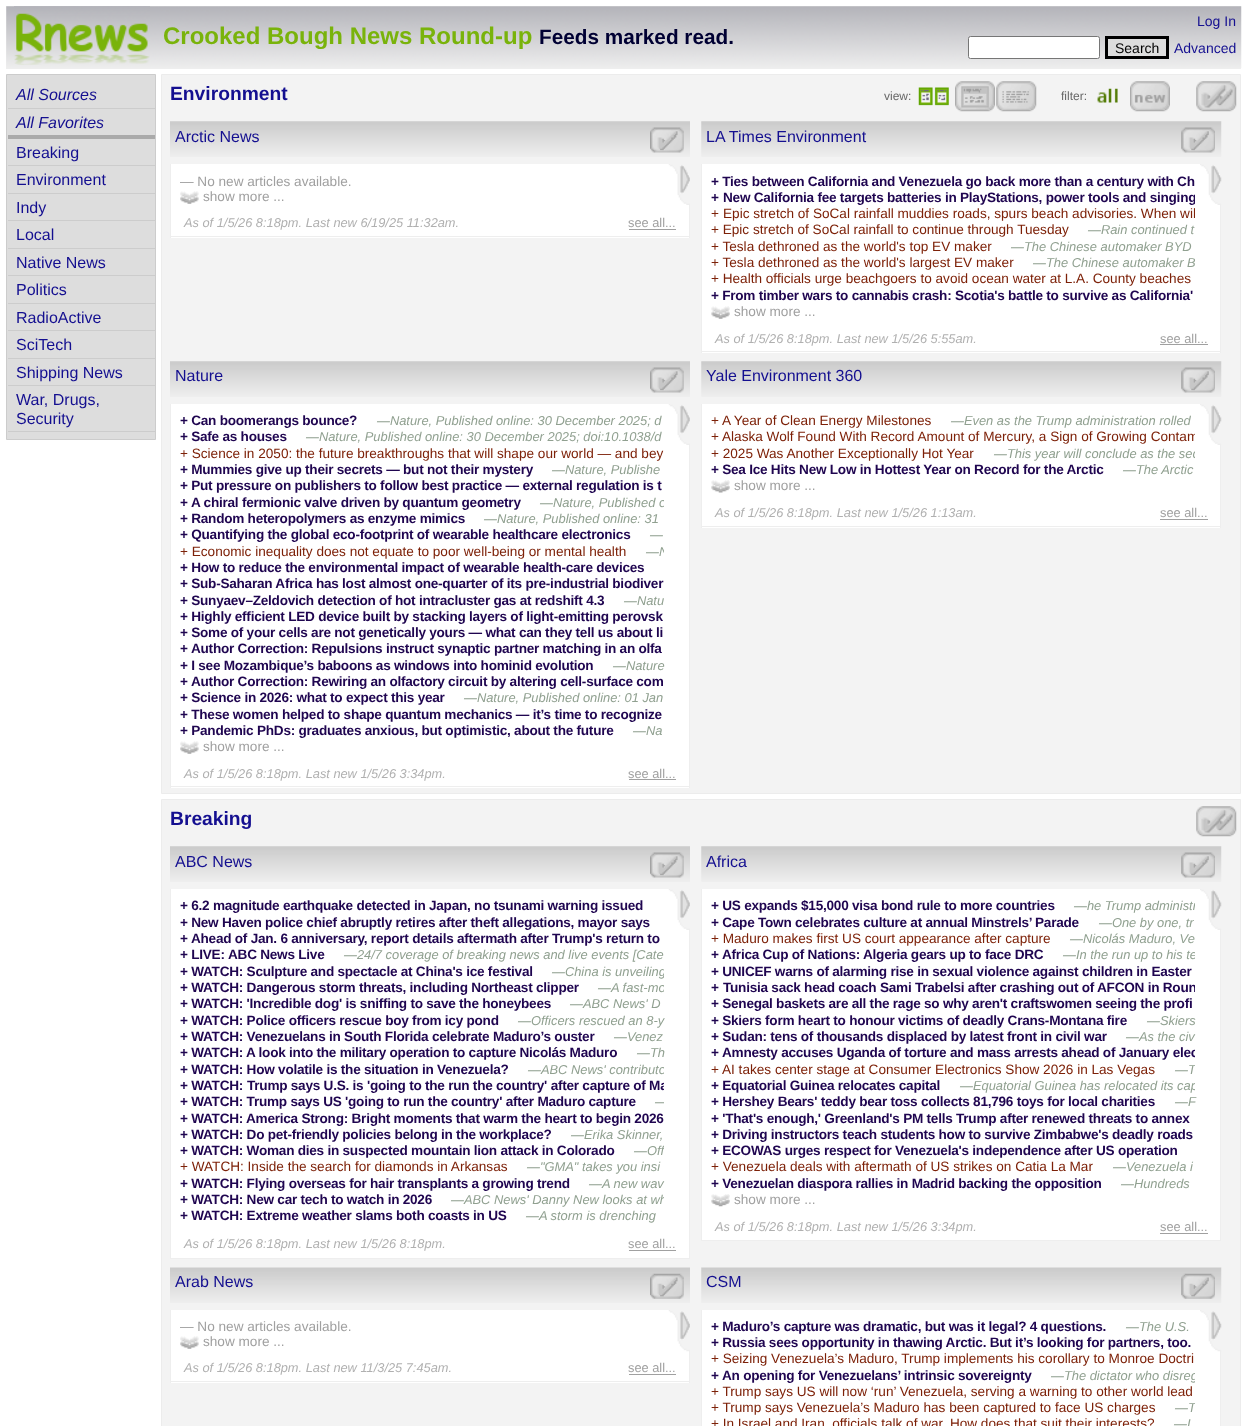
<svg xmlns="http://www.w3.org/2000/svg" width="1247" height="1426">
<style>
.a{font:14px Liberation Sans;fill:#140f90}
.b{font:bold 24px Liberation Sans;fill:#79b30b}
.c{font:bold 20.75px Liberation Sans;fill:#003}
.d{font:14px Liberation Sans;fill:#000}
.e{font:italic 16px Liberation Sans;fill:#140f90}
.f{font:16px Liberation Sans;fill:#140f90}
.g{font:bold 19.25px Liberation Sans;fill:#140f90}
.h{font:12px Liberation Sans;fill:#666}
.i{font:13.6px Liberation Sans;fill:#a0a0a0}
.j{font:italic 12.8px Liberation Sans;fill:#b0b0b0}
.k{font:12.8px Liberation Sans;fill:#a0a0a0}
.l{font:bold 13.6px Liberation Sans;letter-spacing:-0.25px;fill:#1f0550}
.m{font:13.6px Liberation Sans;fill:#7d2108}
.n{font:italic 12.9px Liberation Sans;fill:#90a090}
</style>
<defs>
<clipPath id="clip1"><path d="M711 190h484v16H711z"/></clipPath>
<clipPath id="clip2"><path d="M711 206h484v17H711z"/></clipPath>
<clipPath id="clip3"><path d="M711 255h484v16H711z"/></clipPath>
<clipPath id="clip4"><path d="M180 494h484v16H180z"/></clipPath>
<clipPath id="clip5"><path d="M180 544h484v16H180z"/></clipPath>
<clipPath id="clip6"><path d="M711 429h484v16H711z"/></clipPath>
<clipPath id="clip7"><path d="M711 445h484v16H711z"/></clipPath>
<clipPath id="clip8"><path d="M180 964h484v16H180z"/></clipPath>
<clipPath id="clip9"><path d="M180 980h484v16H180z"/></clipPath>
<clipPath id="clip10"><path d="M180 1061h484v17H180z"/></clipPath>
<clipPath id="clip11"><path d="M180 1078h484v16H180z"/></clipPath>
<clipPath id="clip12"><path d="M180 1094h484v16H180z"/></clipPath>
<clipPath id="clip13"><path d="M180 1143h484v16H180z"/></clipPath>
<clipPath id="clip14"><path d="M180 1191h484v17H180z"/></clipPath>
<clipPath id="clip15"><path d="M711 898h484v16H711z"/></clipPath>
<clipPath id="clip16"><path d="M711 948h484v16H711z"/></clipPath>
<clipPath id="clip17"><path d="M711 980h484v16H711z"/></clipPath>
<clipPath id="clip18"><path d="M711 1045h484v16H711z"/></clipPath>
<clipPath id="clip19"><path d="M711 1061h484v17H711z"/></clipPath>
<clipPath id="clip20"><path d="M711 1078h484v16H711z"/></clipPath>
<clipPath id="clip21"><path d="M711 1368h484v16H711z"/></clipPath>
<clipPath id="clip22"><path d="M711 1400h484v16H711z"/></clipPath>
</defs>
<rect width="100%" height="100%" fill="#fff"/>
<path fill="#eee" d="M6 6h1235v63H6z"/>
<image href="1.png" x="6" y="6" width="1236" height="62"/>
<image href="2.png" x="14" y="6" width="136" height="59"/>
<rect fill="#fff" stroke="#767676" x="968.5" y="36.5" width="131" height="22" rx="2"/>
<path fill="#ddd" stroke="#000" stroke-width="3" d="M1106.5 37.5h61v20H1106.5z"/>
<path fill="#ddd" stroke="#ccc" d="M6.5 74.5h149v365H6.5z"/>
<path fill="#ccc" d="M8 108h147v1H8z"/>
<path fill="#aaa" d="M8 135h147v4H8z"/>
<path fill="#ccc" d="M8 165h147v1H8z"/>
<path fill="#ccc" d="M8 193h147v1H8z"/>
<path fill="#ccc" d="M8 220h147v1H8z"/>
<path fill="#ccc" d="M8 248h147v1H8z"/>
<path fill="#ccc" d="M8 275h147v1H8z"/>
<path fill="#ccc" d="M8 303h147v1H8z"/>
<path fill="#ccc" d="M8 330h147v1H8z"/>
<path fill="#ccc" d="M8 358h147v1H8z"/>
<path fill="#ccc" d="M8 385h147v1H8z"/>
<path fill="#ccc" d="M8 431h147v1H8z"/>
<path fill="#f3f3f3" stroke="#ececec" d="M161.5 74.5h1079v719H161.5z"/>
<image href="3.png" x="918" y="87" width="31" height="19"/>
<image href="4.png" x="955" y="81" width="40" height="31"/>
<image href="5.png" x="996" y="81" width="41" height="31"/>
<image href="6.png" x="1097" y="88" width="21" height="15"/>
<image href="7.png" x="1130" y="81" width="40" height="31"/>
<image href="8.png" x="1196" y="81" width="41" height="31"/>
<image href="9.png" x="170" y="121" width="520" height="36"/>
<image href="10.png" x="650" y="127" width="34" height="26"/>
<path fill="#fff" d="M171 164h518v74H171z"/>
<path fill="#eee" d="M689 205h1v33H689z"/>
<path fill="#eee" d="M170 236h520v1H170z"/>
<path fill="#eee" d="M170 164h1v74H170z"/>
<image href="11.png" x="180" y="191" width="19" height="13"/>
<image href="12.png" x="668" y="164" width="22" height="41"/>
<path fill="#a0a0a0" d="M629 229h47v1H629z"/>
<image href="13.png" x="701" y="121" width="521" height="36"/>
<image href="14.png" x="1181" y="127" width="34" height="26"/>
<path fill="#fff" d="M702 164h518v189H702z"/>
<path fill="#eee" d="M1220 205h1v148H1220z"/>
<path fill="#eee" d="M701 351h520v1H701z"/>
<path fill="#eee" d="M701 164h1v189H701z"/>
<image href="15.png" x="711" y="306" width="19" height="13"/>
<image href="16.png" x="1200" y="164" width="22" height="41"/>
<path fill="#a0a0a0" d="M1160 344h48v1H1160z"/>
<image href="9.png" x="170" y="361" width="520" height="36"/>
<image href="10.png" x="650" y="367" width="34" height="26"/>
<path fill="#fff" d="M171 404h518v384H171z"/>
<path fill="#eee" d="M689 445h1v343H689z"/>
<path fill="#eee" d="M170 786h520v1H170z"/>
<path fill="#eee" d="M170 404h1v384H170z"/>
<image href="11.png" x="180" y="741" width="19" height="13"/>
<image href="12.png" x="668" y="404" width="22" height="41"/>
<path fill="#a0a0a0" d="M629 779h47v1H629z"/>
<image href="13.png" x="701" y="361" width="521" height="36"/>
<image href="14.png" x="1181" y="367" width="34" height="26"/>
<path fill="#fff" d="M702 404h518v124H702z"/>
<path fill="#eee" d="M1220 445h1v83H1220z"/>
<path fill="#eee" d="M701 526h520v1H701z"/>
<path fill="#eee" d="M701 404h1v124H701z"/>
<image href="17.png" x="711" y="480" width="19" height="13"/>
<image href="16.png" x="1200" y="404" width="22" height="41"/>
<path fill="#a0a0a0" d="M1160 519h48v1H1160z"/>
<path fill="#f3f3f3" stroke="#ececec" d="M161.5 799.5h1079v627H161.5z"/>
<image href="8.png" x="1196" y="806" width="41" height="31"/>
<image href="9.png" x="170" y="846" width="520" height="36"/>
<image href="10.png" x="650" y="852" width="34" height="26"/>
<path fill="#fff" d="M171 889h518v369H171z"/>
<path fill="#eee" d="M689 930h1v329H689z"/>
<path fill="#eee" d="M170 1258h520v1H170z"/>
<path fill="#eee" d="M170 889h1v370H170z"/>
<image href="12.png" x="668" y="889" width="22" height="41"/>
<path fill="#a0a0a0" d="M629 1250h47v1H629z"/>
<image href="13.png" x="701" y="846" width="521" height="36"/>
<image href="14.png" x="1181" y="852" width="34" height="26"/>
<path fill="#fff" d="M702 889h518v351H702z"/>
<path fill="#eee" d="M1220 930h1v311H1220z"/>
<path fill="#eee" d="M701 1240h520v1H701z"/>
<path fill="#eee" d="M701 889h1v352H701z"/>
<image href="18.png" x="711" y="1194" width="19" height="13"/>
<image href="16.png" x="1200" y="889" width="22" height="41"/>
<path fill="#a0a0a0" d="M1160 1233h48v1H1160z"/>
<image href="19.png" x="170" y="1267" width="520" height="36"/>
<image href="20.png" x="650" y="1273" width="34" height="26"/>
<path fill="#fff" d="M171 1310h518v73H171z"/>
<path fill="#eee" d="M689 1351h1v32H689z"/>
<path fill="#eee" d="M170 1381h520v1H170z"/>
<path fill="#eee" d="M170 1310h1v73H170z"/>
<image href="11.png" x="180" y="1336" width="19" height="13"/>
<image href="21.png" x="668" y="1310" width="22" height="42"/>
<path fill="#a0a0a0" d="M629 1374h47v1H629z"/>
<image href="22.png" x="701" y="1267" width="521" height="36"/>
<image href="23.png" x="1181" y="1273" width="34" height="26"/>
<path fill="#fff" d="M702 1310h518v116H702z"/>
<path fill="#eee" d="M1220 1351h1v75H1220z"/>
<path fill="#eee" d="M701 1310h1v116H701z"/>
<image href="24.png" x="1200" y="1310" width="22" height="42"/>
<text class="a" x="1197" y="26">Log In</text>
<text class="b" x="163" y="44">Crooked Bough News Round-up</text>
<text class="c" x="539" y="44">Feeds marked read.</text>
<text class="d" x="1115" y="53">Search</text>
<text class="a" x="1174" y="53">Advanced</text>
<text class="e" x="16" y="100">All Sources</text>
<text class="e" x="16" y="128">All Favorites</text>
<text class="f" x="16" y="158">Breaking</text>
<text class="f" x="16" y="185">Environment</text>
<text class="f" x="16" y="213">Indy</text>
<text class="f" x="16" y="240">Local</text>
<text class="f" x="16" y="268">Native News</text>
<text class="f" x="16" y="295">Politics</text>
<text class="f" x="16" y="323">RadioActive</text>
<text class="f" x="16" y="350">SciTech</text>
<text class="f" x="16" y="378">Shipping News</text>
<text class="f" x="16" y="405">War, Drugs,</text>
<text class="f" x="16" y="424">Security</text>
<text class="g" x="170" y="100">Environment</text>
<text class="h" x="884" y="100">view:</text>
<text class="h" x="1061" y="100">filter:</text>
<text class="f" x="175" y="142">Arctic News</text>
<text class="i" x="180" y="186">— No new articles available.</text>
<text class="i" x="203" y="201">show more ...</text>
<text class="j" x="184" y="227">As of 1/5/26 8:18pm. Last new 6/19/25 11:32am.</text>
<text class="k" x="628" y="227">see all...</text>
<text class="f" x="706" y="142">LA Times Environment</text>
<text class="l" x="711" y="186">+ Ties between California and Venezuela go back more than a century with Ch</text>
<text class="l" x="711" y="202">+</text>
<g clip-path="url(#clip1)">
<text class="l" x="723" y="202">New California fee targets batteries in PlayStations, power tools and singing</text>
</g>
<text class="m" x="711" y="218">+</text>
<g clip-path="url(#clip2)">
<text class="m" x="723" y="218">Epic stretch of SoCal rainfall muddies roads, spurs beach advisories. When wil</text>
</g>
<text class="m" x="711" y="234">+ Epic stretch of SoCal rainfall to continue through Tuesday</text>
<text class="n" x="1088" y="234">—Rain continued t</text>
<text class="m" x="711" y="251">+ Tesla dethroned as the world's top EV maker</text>
<text class="n" x="1011" y="251">—The Chinese automaker BYD</text>
<text class="m" x="711" y="267">+ Tesla dethroned as the world's largest EV maker</text>
<g clip-path="url(#clip3)">
<text class="n" x="1033" y="267">—The Chinese automaker B</text>
</g>
<text class="m" x="711" y="283">+ Health officials urge beachgoers to avoid ocean water at L.A. County beaches</text>
<text class="l" x="711" y="300">+ From timber wars to cannabis crash: Scotia's battle to survive as California'</text>
<text class="i" x="734" y="316">show more ...</text>
<text class="j" x="715" y="343">As of 1/5/26 8:18pm. Last new 1/5/26 5:55am.</text>
<text class="k" x="1160" y="343">see all...</text>
<text class="f" x="175" y="381">Nature</text>
<text class="l" x="180" y="425">+ Can boomerangs bounce?</text>
<text class="n" x="377" y="425">—Nature, Published online: 30 December 2025; d</text>
<text class="l" x="180" y="441">+ Safe as houses</text>
<text class="n" x="306" y="441">—Nature, Published online: 30 December 2025; doi:10.1038/d</text>
<text class="m" x="180" y="458">+ Science in 2050: the future breakthroughs that will shape our world — and bey</text>
<text class="l" x="180" y="474">+ Mummies give up their secrets — but not their mystery</text>
<text class="n" x="552" y="474">—Nature, Publishe</text>
<text class="l" x="180" y="490">+ Put pressure on publishers to follow best practice — external regulation is t</text>
<text class="l" x="180" y="507">+</text>
<text class="l" x="191" y="507">A chiral fermionic valve driven by quantum geometry</text>
<g clip-path="url(#clip4)">
<text class="n" x="540" y="507">—Nature, Published o</text>
</g>
<text class="l" x="180" y="523">+ Random heteropolymers as enzyme mimics</text>
<text class="n" x="484" y="523">—Nature, Published online: 31</text>
<text class="l" x="180" y="539">+ Quantifying the global eco-footprint of wearable healthcare electronics</text>
<text class="n" x="650" y="539">—</text>
<text class="m" x="180" y="556">+ Economic inequality does not equate to poor well-being or mental health</text>
<g clip-path="url(#clip5)">
<text class="n" x="646" y="556">—N</text>
</g>
<text class="l" x="180" y="572">+ How to reduce the environmental impact of wearable health-care devices</text>
<text class="l" x="180" y="588">+ Sub-Saharan Africa has lost almost one-quarter of its pre-industrial biodiver</text>
<text class="l" x="180" y="605">+ Sunyaev–Zeldovich detection of hot intracluster gas at redshift 4.3</text>
<text class="n" x="624" y="605">—Natu</text>
<text class="l" x="180" y="621">+ Highly efficient LED device built by stacking layers of light-emitting perovsk</text>
<text class="l" x="180" y="637">+ Some of your cells are not genetically yours — what can they tell us about li</text>
<text class="l" x="180" y="653">+</text>
<text class="l" x="191" y="653">Author Correction: Repulsions instruct synaptic partner matching in an olfa</text>
<text class="l" x="180" y="670">+ I see Mozambique’s baboons as windows into hominid evolution</text>
<text class="n" x="613" y="670">—Nature</text>
<text class="l" x="180" y="686">+</text>
<text class="l" x="191" y="686">Author Correction: Rewiring an olfactory circuit by altering cell-surface com</text>
<text class="l" x="180" y="702">+ Science in 2026: what to expect this year</text>
<text class="n" x="464" y="702">—Nature, Published online: 01 Jan</text>
<text class="l" x="180" y="719">+ These women helped to shape quantum mechanics — it’s time to recognize</text>
<text class="l" x="180" y="735">+ Pandemic PhDs: graduates anxious, but optimistic, about the future</text>
<text class="n" x="633" y="735">—Na</text>
<text class="i" x="203" y="751">show more ...</text>
<text class="j" x="184" y="778">As of 1/5/26 8:18pm. Last new 1/5/26 3:34pm.</text>
<text class="k" x="628" y="778">see all...</text>
<text class="f" x="706" y="381">Yale Environment 360</text>
<text class="m" x="711" y="425">+</text>
<text class="m" x="722" y="425">A Year of Clean Energy Milestones</text>
<text class="n" x="951" y="425">—Even as the Trump administration rolled</text>
<text class="m" x="711" y="441">+</text>
<g clip-path="url(#clip6)">
<text class="m" x="722" y="441">Alaska Wolf Found With Record Amount of Mercury, a Sign of Growing Contam</text>
</g>
<text class="m" x="711" y="458">+ 2025 Was Another Exceptionally Hot Year</text>
<g clip-path="url(#clip7)">
<text class="n" x="994" y="458">—This year will conclude as the sec</text>
</g>
<text class="l" x="711" y="474">+ Sea Ice Hits New Low in Hottest Year on Record for the Arctic</text>
<text class="n" x="1123" y="474">—The Arctic</text>
<text class="i" x="734" y="490">show more ...</text>
<text class="j" x="715" y="517">As of 1/5/26 8:18pm. Last new 1/5/26 1:13am.</text>
<text class="k" x="1160" y="517">see all...</text>
<text class="g" x="170" y="825">Breaking</text>
<text class="f" x="175" y="867">ABC News</text>
<text class="l" x="180" y="910">+ 6.2 magnitude earthquake detected in Japan, no tsunami warning issued</text>
<text class="l" x="180" y="927">+ New Haven police chief abruptly retires after theft allegations, mayor says</text>
<text class="l" x="180" y="943">+</text>
<text class="l" x="191" y="943">Ahead of Jan. 6 anniversary, report details aftermath after Trump's return to</text>
<text class="l" x="180" y="959">+ LIVE:</text>
<text class="l" x="228" y="959">ABC News Live</text>
<text class="n" x="344" y="959">—24/7 coverage of breaking news and live events [Cate</text>
<text class="l" x="180" y="976">+ WATCH: Sculpture and spectacle at China's ice festival</text>
<g clip-path="url(#clip8)">
<text class="n" x="552" y="976">—China is unveiling</text>
</g>
<text class="l" x="180" y="992">+ WATCH: Dangerous storm threats, including Northeast clipper</text>
<g clip-path="url(#clip9)">
<text class="n" x="598" y="992">—A fast-mo</text>
</g>
<text class="l" x="180" y="1008">+ WATCH: 'Incredible dog' is sniffing to save the honeybees</text>
<text class="n" x="570" y="1008">—ABC News' D</text>
<text class="l" x="180" y="1025">+ WATCH: Police officers rescue boy from icy pond</text>
<text class="n" x="518" y="1025">—Officers rescued an 8-y</text>
<text class="l" x="180" y="1041">+ WATCH: Venezuelans in South Florida celebrate Maduro’s ouster</text>
<text class="n" x="614" y="1041">—Venez</text>
<text class="l" x="180" y="1057">+ WATCH:</text>
<text class="l" x="246" y="1057">A look into the military operation to capture Nicolás Maduro</text>
<text class="n" x="637" y="1057">—Th</text>
<text class="l" x="180" y="1074">+ WATCH: How volatile is the situation in Venezuela?</text>
<g clip-path="url(#clip10)">
<text class="n" x="528" y="1074">—ABC News' contributo</text>
</g>
<text class="l" x="180" y="1090">+ WATCH:</text>
<g clip-path="url(#clip11)">
<text class="l" x="247" y="1090">Trump says U.S. is 'going to the run the country' after capture of Ma</text>
</g>
<text class="l" x="180" y="1106">+ WATCH: Trump says US 'going to run the country' after Maduro capture</text>
<g clip-path="url(#clip12)">
<text class="n" x="655" y="1106">—</text>
</g>
<text class="l" x="180" y="1123">+ WATCH:</text>
<text class="l" x="246" y="1123">America Strong: Bright moments that warm the heart to begin 2026</text>
<text class="l" x="180" y="1139">+ WATCH: Do pet-friendly policies belong in the workplace?</text>
<text class="n" x="571" y="1139">—Erika Skinner,</text>
<text class="l" x="180" y="1155">+ WATCH: Woman dies in suspected mountain lion attack in Colorado</text>
<g clip-path="url(#clip13)">
<text class="n" x="634" y="1155">—Off</text>
</g>
<text class="m" x="180" y="1171">+ WATCH: Inside the search for diamonds in Arkansas</text>
<text class="n" x="527" y="1171">—"GMA" takes you insi</text>
<text class="l" x="180" y="1188">+ WATCH: Flying overseas for hair transplants a growing trend</text>
<text class="n" x="589" y="1188">—A new wav</text>
<text class="l" x="180" y="1204">+ WATCH: New car tech to watch in 2026</text>
<g clip-path="url(#clip14)">
<text class="n" x="451" y="1204">—ABC News' Danny New looks at wh</text>
</g>
<text class="l" x="180" y="1220">+ WATCH: Extreme weather slams both coasts in US</text>
<text class="n" x="526" y="1220">—A storm is drenching</text>
<text class="j" x="184" y="1248">As of 1/5/26 8:18pm. Last new 1/5/26 8:18pm.</text>
<text class="k" x="628" y="1248">see all...</text>
<text class="f" x="706" y="867">Africa</text>
<text class="l" x="711" y="910">+ US expands $15,000 visa bond rule to more countries</text>
<g clip-path="url(#clip15)">
<text class="n" x="1074" y="910">—he Trump administr</text>
</g>
<text class="l" x="711" y="927">+ Cape Town celebrates culture at annual Minstrels’ Parade</text>
<text class="n" x="1099" y="927">—One by one, tr</text>
<text class="m" x="711" y="943">+ Maduro makes first US court appearance after capture</text>
<text class="n" x="1070" y="943">—Nicolás Maduro, Ve</text>
<text class="l" x="711" y="959">+</text>
<text class="l" x="722" y="959">Africa Cup of Nations: Algeria gears up to face DRC</text>
<g clip-path="url(#clip16)">
<text class="n" x="1063" y="959">—In the run up to his te</text>
</g>
<text class="l" x="711" y="976">+ UNICEF warns of alarming rise in sexual violence against children in Easter</text>
<text class="l" x="711" y="992">+</text>
<g clip-path="url(#clip17)">
<text class="l" x="723" y="992">Tunisia sack head coach Sami Trabelsi after crashing out of AFCON in Roun</text>
</g>
<text class="l" x="711" y="1008">+ Senegal baskets are all the rage so why aren't craftswomen seeing the profi</text>
<text class="l" x="711" y="1025">+ Skiers form heart to honour victims of deadly Crans-Montana fire</text>
<text class="n" x="1147" y="1025">—Skiers</text>
<text class="l" x="711" y="1041">+ Sudan: tens of thousands displaced by latest front in civil war</text>
<text class="n" x="1126" y="1041">—As the civ</text>
<text class="l" x="711" y="1057">+</text>
<g clip-path="url(#clip18)">
<text class="l" x="722" y="1057">Amnesty accuses Uganda of torture and mass arrests ahead of January elec</text>
</g>
<text class="m" x="711" y="1074">+</text>
<text class="m" x="722" y="1074">AI takes center stage at Consumer Electronics Show 2026 in Las Vegas</text>
<g clip-path="url(#clip19)">
<text class="n" x="1175" y="1074">—T</text>
</g>
<text class="l" x="711" y="1090">+ Equatorial Guinea relocates capital</text>
<g clip-path="url(#clip20)">
<text class="n" x="960" y="1090">—Equatorial Guinea has relocated its cap</text>
</g>
<text class="l" x="711" y="1106">+ Hershey Bears' teddy bear toss collects 81,796 toys for local charities</text>
<text class="n" x="1175" y="1106">—F</text>
<text class="l" x="711" y="1123">+ 'That's enough,' Greenland's PM tells Trump after renewed threats to annex</text>
<text class="l" x="711" y="1139">+ Driving instructors teach students how to survive Zimbabwe's deadly roads</text>
<text class="l" x="711" y="1155">+ ECOWAS urges respect for Venezuela's independence after US operation</text>
<text class="m" x="711" y="1171">+ Venezuela deals with aftermath of US strikes on Catia La Mar</text>
<text class="n" x="1113" y="1171">—Venezuela i</text>
<text class="l" x="711" y="1188">+ Venezuelan diaspora rallies in Madrid backing the opposition</text>
<text class="n" x="1121" y="1188">—Hundreds</text>
<text class="i" x="734" y="1204">show more ...</text>
<text class="j" x="715" y="1231">As of 1/5/26 8:18pm. Last new 1/5/26 3:34pm.</text>
<text class="k" x="1160" y="1231">see all...</text>
<text class="f" x="175" y="1287">Arab News</text>
<text class="i" x="180" y="1331">— No new articles available.</text>
<text class="i" x="203" y="1346">show more ...</text>
<text class="j" x="184" y="1372">As of 1/5/26 8:18pm. Last new 11/3/25 7:45am.</text>
<text class="k" x="628" y="1372">see all...</text>
<text class="f" x="706" y="1287">CSM</text>
<text class="l" x="711" y="1331">+ Maduro’s capture was dramatic, but was it legal? 4 questions.</text>
<text class="n" x="1126" y="1331">—The U.S.</text>
<text class="l" x="711" y="1347">+ Russia sees opportunity in thawing Arctic. But it’s looking for partners, too.</text>
<text class="m" x="711" y="1363">+ Seizing Venezuela’s Maduro, Trump implements his corollary to Monroe Doctri</text>
<text class="l" x="711" y="1380">+</text>
<text class="l" x="722" y="1380">An opening for Venezuelans’ intrinsic sovereignty</text>
<g clip-path="url(#clip21)">
<text class="n" x="1051" y="1380">—The dictator who disreg</text>
</g>
<text class="m" x="711" y="1396">+ Trump says US will now ‘run’ Venezuela, serving a warning to other world lead</text>
<text class="m" x="711" y="1412">+ Trump says Venezuela’s Maduro has been captured to face US charges</text>
<g clip-path="url(#clip22)">
<text class="n" x="1175" y="1412">—T</text>
</g>
<text class="m" x="711" y="1428">+ In Israel and Iran, officials talk of war. How does that suit their interests?</text>
<text class="n" x="1174" y="1428">—I</text>
</svg>
